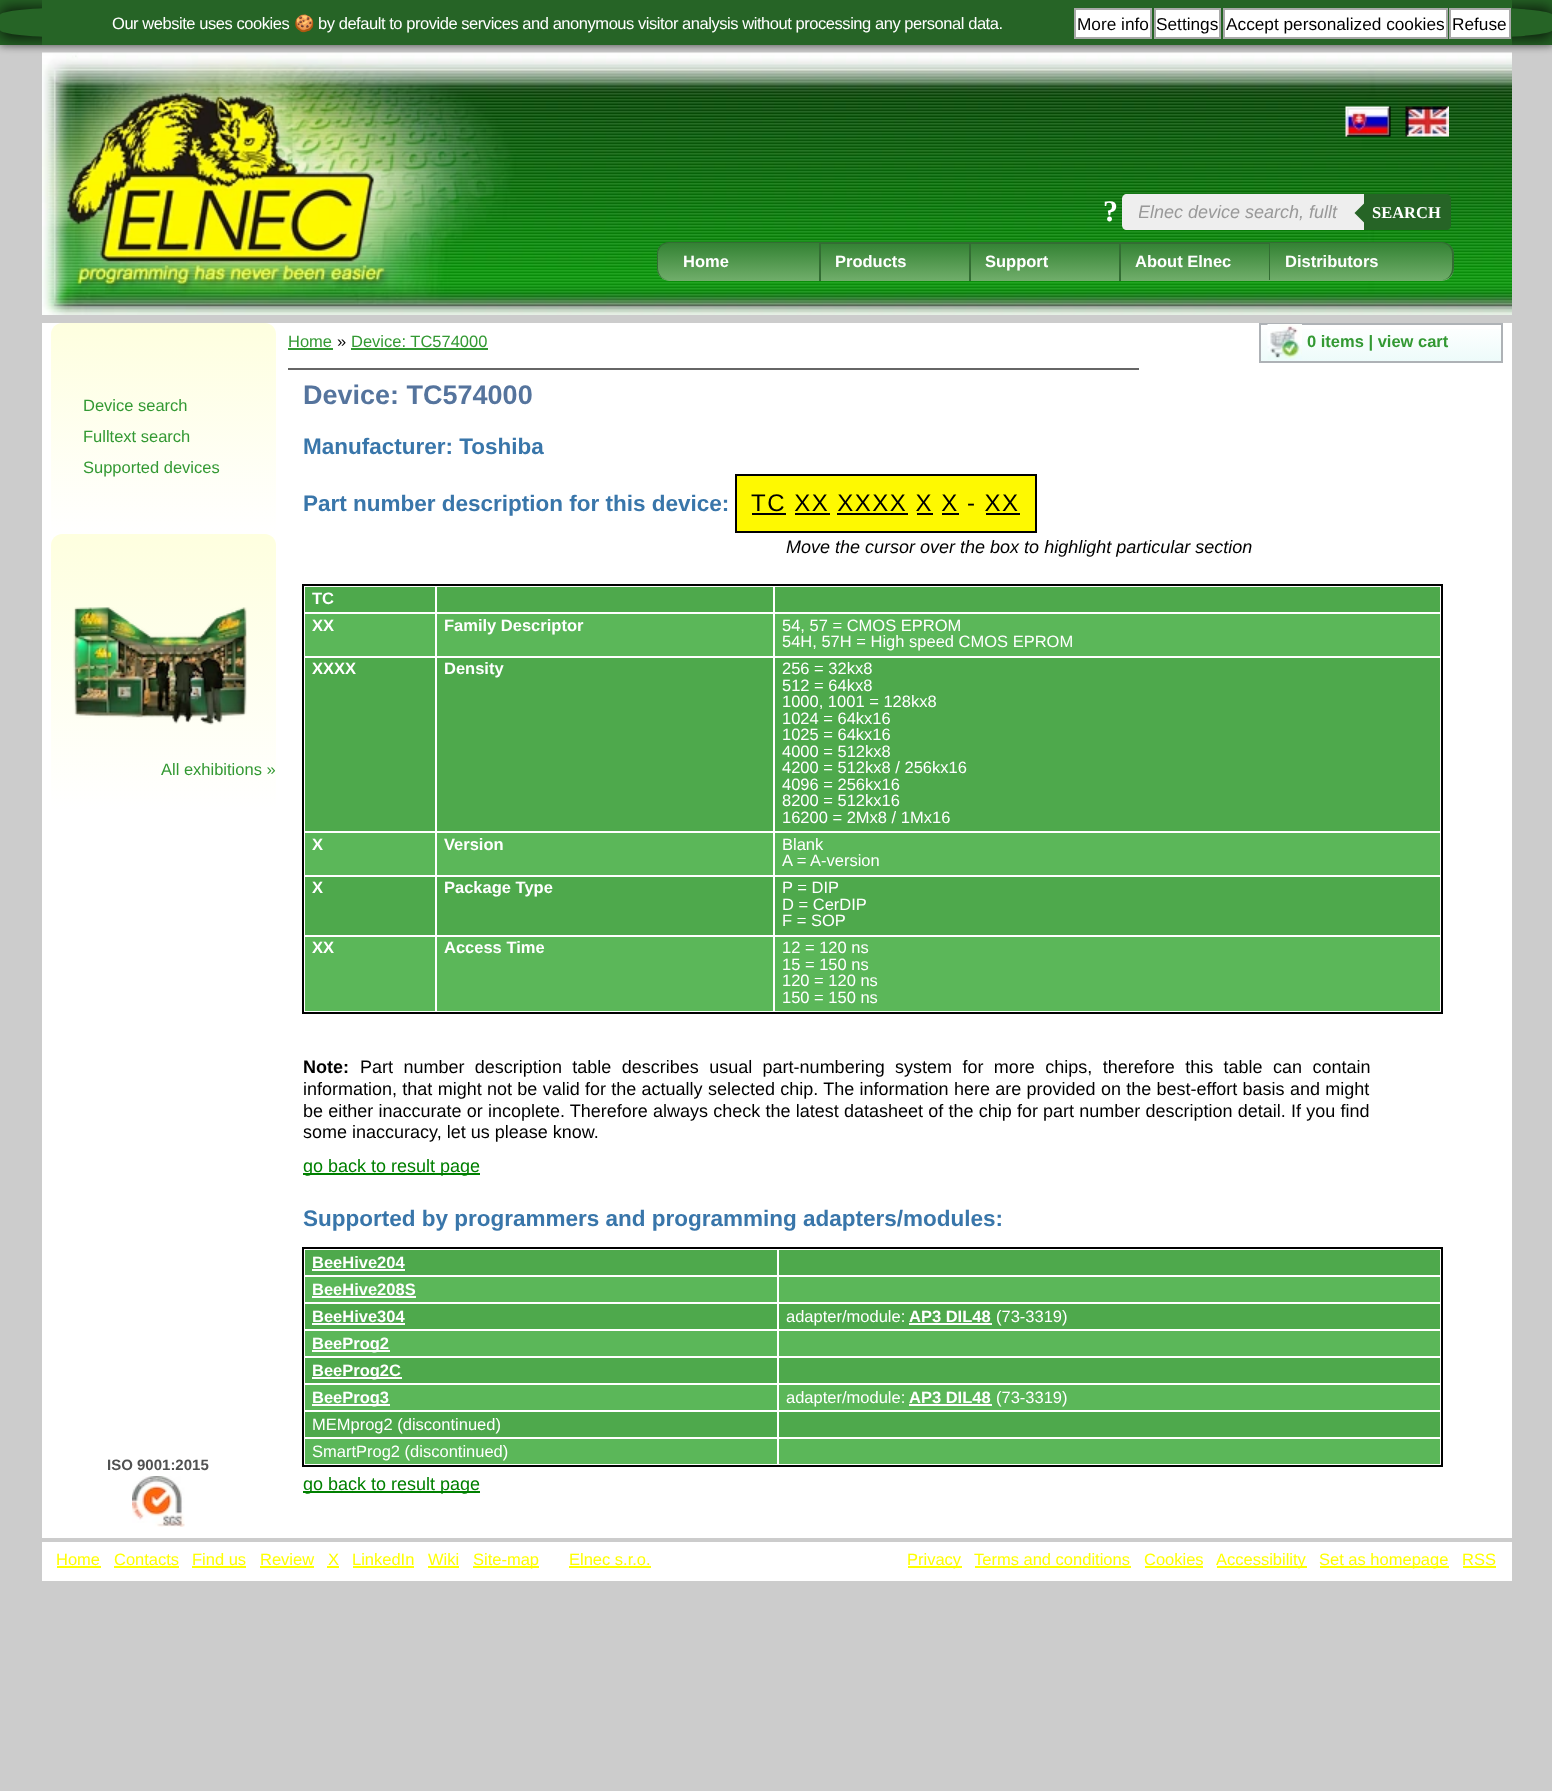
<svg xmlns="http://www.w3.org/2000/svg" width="1552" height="1791">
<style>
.a{font:16.5px Liberation Sans;letter-spacing:-0.45px;fill:#fff}
.b{font:16.5px Noto Color Emoji;letter-spacing:-0.45px;fill:#fff}
.c{font:17.25px Liberation Sans;fill:#000}
.d{font:bold 30px Liberation Serif;fill:#fff}
.e{font:italic 18px Liberation Sans;fill:#999}
.f{font:bold 16.5px Liberation Serif;fill:#fff}
.g{font:bold 16.5px Liberation Sans;fill:#fff}
.h{font:16.5px Liberation Sans;fill:#393}
.i{font:16.5px Liberation Sans;fill:#000}
.j{font:bold 27px Liberation Sans;fill:#55749d}
.k{font:bold 22.5px Liberation Sans;fill:#3976aa}
.l{font:24px Liberation Sans;letter-spacing:1.5px;fill:#000}
.m{font:italic 18px Liberation Sans;fill:#000}
.n{font:16.5px Liberation Sans;fill:#fff}
.o{font:bold 18px Liberation Sans;fill:#000}
.p{font:18px Liberation Sans;fill:#000}
.q{font:18px Liberation Sans;fill:#008000}
.r{font:bold 16.5px Liberation Sans;fill:#393}
.s{font:bold 15px Liberation Sans;fill:#505151}
.t{font:16.5px Liberation Sans;fill:#ff0}
</style>
<defs>
<clipPath id="clip1"><path d="M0 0h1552v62h-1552zm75 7.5h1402.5c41.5 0 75 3.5 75 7.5v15c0 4-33.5 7.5-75 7.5h-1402.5c-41.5 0-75-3.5-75-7.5v-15c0-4 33.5-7.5 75-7.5z" clip-rule="evenodd"/></clipPath>
<clipPath id="clip2"><path d="M669 242h150v39h-150c-6.5 0-12-5.5-12-12v-15c0-6.5 5.5-12 12-12z"/></clipPath>
<linearGradient id="g1" gradientUnits="userSpaceOnUse" x1="739" y1="243" x2="739" y2="281"><stop offset="0" stop-color="#338233"/><stop offset="1" stop-color="#71ae6b"/></linearGradient>
<linearGradient id="g2" gradientUnits="userSpaceOnUse" x1="895" y1="243" x2="895" y2="281"><stop offset="0" stop-color="#338233"/><stop offset="1" stop-color="#71ae6b"/></linearGradient>
<linearGradient id="g3" gradientUnits="userSpaceOnUse" x1="1045" y1="243" x2="1045" y2="281"><stop offset="0" stop-color="#338233"/><stop offset="1" stop-color="#71ae6b"/></linearGradient>
<linearGradient id="g4" gradientUnits="userSpaceOnUse" x1="1195" y1="243" x2="1195" y2="281"><stop offset="0" stop-color="#338233"/><stop offset="1" stop-color="#71ae6b"/></linearGradient>
<clipPath id="clip3"><path d="M1269 242h173c6.5 0 12 5.5 12 12v15c0 6.5-5.5 12-12 12h-173z"/></clipPath>
<linearGradient id="g5" gradientUnits="userSpaceOnUse" x1="1361" y1="243" x2="1361" y2="281"><stop offset="0" stop-color="#338233"/><stop offset="1" stop-color="#71ae6b"/></linearGradient>
<linearGradient id="g6" gradientUnits="userSpaceOnUse" x1="1381" y1="324" x2="1381" y2="362"><stop offset="0" stop-color="#fff"/><stop offset="1" stop-color="#edfbfa"/></linearGradient>
<linearGradient id="g7" gradientUnits="userSpaceOnUse" x1="163" y1="323" x2="164" y2="534"><stop offset="0" stop-color="#feffdf"/><stop offset="1" stop-color="#fff"/></linearGradient>
<linearGradient id="g8" gradientUnits="userSpaceOnUse" x1="163" y1="534" x2="164" y2="810"><stop offset="0" stop-color="#feffdf"/><stop offset="1" stop-color="#fff"/></linearGradient>
<clipPath id="clip4"><path d="M1139 201h202v21H1139z"/></clipPath>
</defs>
<rect width="100%" height="100%" fill="#ccc"/>
<image href="1.png" x="42" y="52" width="1470" height="263"/>
<path fill="#0000004d" filter="blur(3px)" d="M0 2h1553v45H0z"/>
<path fill="#266426" d="M0 0h1552v45H0z"/>
<g clip-path="url(#clip1)">
<rect fill="#000000cc" filter="blur(7.5px)" y="8" width="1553" height="30" rx="8"/>
</g>
<path fill="#266426" d="M42 0h1470v45H42z"/>
<path fill="#fff" stroke="#a9a9a9" stroke-width="2" d="M1075 9h76v29H1075z"/>
<path fill="#fff" stroke="#a9a9a9" stroke-width="2" d="M1155 9h65v29H1155z"/>
<path fill="#fff" stroke="#a9a9a9" stroke-width="2" d="M1224 9h223v29H1224z"/>
<path fill="#fff" stroke="#a9a9a9" stroke-width="2" d="M1450 9h60v29H1450z"/>
<image href="2.png" x="1345" y="106" width="46" height="31"/>
<image href="3.png" x="1405" y="106" width="44" height="31"/>
<path fill="#eee" d="M1127 194h237v36h-237c-3 0-5-2-5-5v-26c0-3 2-5 5-5z"/>
<path fill="#266426" d="M1364 194h82c3 0 5 2 5 5v26c0 3-2 5-5 5h-82z"/>
<path fill="#266426" d="M1366.5 201v24l-12-12z"/>
<g clip-path="url(#clip2)">
<path fill="url(#g1)" d="M657 243h162v38h-150c-6.5 0-12-5.5-12-12z"/>
</g>
<path fill="#336d33" fill-rule="evenodd" d="M669 242h150v38h-150c-7 0-12-5-12-12v-14c0-7 5-12 12-12zm0 1h150v37h-150c-6 0-11-5-11-12v-14c0-6 5-11 11-11z"/>
<path fill="url(#g2)" d="M821 244h148v37H821z"/>
<path fill="#336d33" d="M819 242h450v2H819z"/>
<path fill="#336d33" d="M819 242h2v39H819z"/>
<path fill="url(#g3)" d="M971 244h148v37H971z"/>
<path fill="#336d33" d="M969 242h2v39H969z"/>
<path fill="url(#g4)" d="M1121 244h148v37H1121z"/>
<path fill="#336d33" d="M1119 242h2v39H1119z"/>
<g clip-path="url(#clip3)">
<path fill="url(#g5)" d="M1269 243h185v26c0 6.5-5.5 12-12 12h-173z"/>
</g>
<path fill="#336d33" fill-rule="evenodd" d="M1269 242h173c6 0 12 5 12 12v14c0 7-6 12-12 12h-173zm1 1h172c5 0 10 5 10 11v14c0 7-5 12-10 12h-172z"/>
<path fill="#fff" d="M42 323h1470v1215H42z"/>
<path fill="#666" d="M288 368h851v2H288z"/>
<path fill="#393" d="M288 348h45v2H288z"/>
<path fill="#393" d="M351 348h137v2H351z"/>
<path fill="#fef901" stroke="#000" stroke-width="2" d="M736 475h300v57H736z"/>
<path fill="#000" d="M752 513h34v2H752z"/>
<path fill="#000" d="M795 513h35v2H795z"/>
<path fill="#000" d="M837 513h71v2H837z"/>
<path fill="#000" d="M917 513h16v2H917z"/>
<path fill="#000" d="M942 513h17v2H942z"/>
<path fill="#000" d="M986 513h34v2H986z"/>
<path fill="#4ea94c" d="M305 587h1135v25H305z"/>
<path fill="#5bb759" d="M305 614h1135v42H305z"/>
<path fill="#4ea94c" d="M305 658h1135v173H305z"/>
<path fill="#5bb759" d="M305 833h1135v42H305z"/>
<path fill="#4ea94c" d="M305 877h1135v58H305z"/>
<path fill="#5bb759" d="M305 937h1135v74H305z"/>
<path fill="#fff" d="M435 585h2v428H435z"/>
<path fill="#fff" d="M773 585h2v428H773z"/>
<path fill="none" stroke="#000" stroke-width="2" d="M303 585h1139v428H303z"/>
<path fill="#008000" d="M303 1173h177v2H303z"/>
<path fill="#4ea94c" d="M305 1250h1135v25H305z"/>
<path fill="#fff" d="M312 1269h93v2H312z"/>
<path fill="#5bb759" d="M305 1277h1135v25H305z"/>
<path fill="#fff" d="M312 1296h104v2H312z"/>
<path fill="#4ea94c" d="M305 1304h1135v25H305z"/>
<path fill="#fff" d="M312 1323h93v2H312z"/>
<path fill="#fff" d="M909 1323h83v2H909z"/>
<path fill="#5bb759" d="M305 1331h1135v25H305z"/>
<path fill="#fff" d="M312 1350h78v2H312z"/>
<path fill="#4ea94c" d="M305 1358h1135v25H305z"/>
<path fill="#fff" d="M312 1377h90v2H312z"/>
<path fill="#5bb759" d="M305 1385h1135v25H305z"/>
<path fill="#fff" d="M312 1404h78v2H312z"/>
<path fill="#fff" d="M909 1404h83v2H909z"/>
<path fill="#4ea94c" d="M305 1412h1135v25H305z"/>
<path fill="#5bb759" d="M305 1439h1135v25H305z"/>
<path fill="#fff" d="M777 1248h2v218H777z"/>
<path fill="none" stroke="#000" stroke-width="2" d="M303 1248h1139v218H303z"/>
<path fill="#008000" d="M303 1491h177v2H303z"/>
<path fill="url(#g6)" d="M1261 329h240v32H1261z"/>
<path fill="none" stroke="#aeb2b6" stroke-width="2" d="M1260 324h242v38H1260z"/>
<image href="4.png" x="1267" y="324" width="35" height="36"/>
<path fill="url(#g7)" d="M62 323h203c6 0 11 5 11 11v200h-225v-200c0-6 5-11 11-11z"/>
<path fill="url(#g8)" d="M62 534h203c6 0 11 5 11 11v265h-225v-265c0-6 5-11 11-11z"/>
<image href="5.png" x="73" y="607" width="174" height="118"/>
<image href="6.png" x="132" y="1476" width="53" height="51"/>
<path fill="#fff" d="M42 1542h1470v39H42z"/>
<path fill="#ff0" d="M57 1566h44v2H57z"/>
<path fill="#ff0" d="M114 1566h65v2H114z"/>
<path fill="#ff0" d="M192 1566h54v2H192z"/>
<path fill="#ff0" d="M260 1566h54v2H260z"/>
<path fill="#ff0" d="M327 1566h12v2H327z"/>
<path fill="#ff0" d="M353 1566h61v2H353z"/>
<path fill="#ff0" d="M428 1566h31v2H428z"/>
<path fill="#ff0" d="M473 1566h66v2H473z"/>
<path fill="#ff0" d="M569 1566h82v2H569z"/>
<path fill="#ff0" d="M908 1566h54v2H908z"/>
<path fill="#ff0" d="M975 1566h156v2H975z"/>
<path fill="#ff0" d="M1145 1566h58v2H1145z"/>
<path fill="#ff0" d="M1217 1566h90v2H1217z"/>
<path fill="#ff0" d="M1320 1566h129v2H1320z"/>
<path fill="#ff0" d="M1463 1566h33v2H1463z"/>
<text class="a" x="112" y="29">Our website uses cookies</text>
<text class="b" x="294" y="29">🍪</text>
<text class="a" x="318" y="29">by default to provide services and anonymous visitor analysis without processing any personal data.</text>
<text class="c" x="1077" y="30">More info</text>
<text class="c" x="1156" y="30">Settings</text>
<text class="c" x="1226" y="30">Accept personalized cookies</text>
<text class="c" x="1452" y="30">Refuse</text>
<text class="d" x="1103" y="221">?</text>
<g clip-path="url(#clip4)">
<text class="e" x="1138" y="218">Elnec device search, fullt</text>
</g>
<text class="f" x="1372" y="218">SEARCH</text>
<text class="g" x="683" y="267">Home</text>
<text class="g" x="835" y="267">Products</text>
<text class="g" x="985" y="267">Support</text>
<text class="g" x="1135" y="267">About Elnec</text>
<text class="g" x="1285" y="267">Distributors</text>
<text class="h" x="288" y="347">Home</text>
<text class="i" x="337" y="347">»</text>
<text class="h" x="351" y="347">Device: TC574000</text>
<text class="j" x="303" y="404">Device: TC574000</text>
<text class="k" x="303" y="454">Manufacturer: Toshiba</text>
<text class="k" x="303" y="511">Part number description for this device:</text>
<text class="l" x="751" y="511">TC XX XXXX X X - XX</text>
<text class="m" x="786" y="553">Move the cursor over the box to highlight particular section</text>
<text class="g" x="312" y="604">TC</text>
<text class="g" x="312" y="631">XX</text>
<text class="g" x="444" y="631">Family Descriptor</text>
<text class="n" x="782" y="631">54, 57 = CMOS EPROM</text>
<text class="n" x="782" y="647">54H, 57H = High speed CMOS EPROM</text>
<text class="g" x="312" y="674">XXXX</text>
<text class="g" x="444" y="674">Density</text>
<text class="n" x="782" y="674">256 = 32kx8</text>
<text class="n" x="782" y="691">512 = 64kx8</text>
<text class="n" x="782" y="707">1000, 1001 = 128kx8</text>
<text class="n" x="782" y="724">1024 = 64kx16</text>
<text class="n" x="782" y="740">1025 = 64kx16</text>
<text class="n" x="782" y="757">4000 = 512kx8</text>
<text class="n" x="782" y="773">4200 = 512kx8 / 256kx16</text>
<text class="n" x="782" y="790">4096 = 256kx16</text>
<text class="n" x="782" y="806">8200 = 512kx16</text>
<text class="n" x="782" y="823">16200 = 2Mx8 / 1Mx16</text>
<text class="g" x="312" y="850">X</text>
<text class="g" x="444" y="850">Version</text>
<text class="n" x="782" y="850">Blank</text>
<text class="n" x="782" y="866">A = A-version</text>
<text class="g" x="312" y="893">X</text>
<text class="g" x="444" y="893">Package Type</text>
<text class="n" x="782" y="893">P = DIP</text>
<text class="n" x="782" y="910">D = CerDIP</text>
<text class="n" x="782" y="926">F = SOP</text>
<text class="g" x="312" y="953">XX</text>
<text class="g" x="444" y="953">Access Time</text>
<text class="n" x="782" y="953">12 = 120 ns</text>
<text class="n" x="782" y="970">15 = 150 ns</text>
<text class="n" x="782" y="986">120 = 120 ns</text>
<text class="n" x="782" y="1003">150 = 150 ns</text>
<text class="o" x="303" y="1073">Note:</text>
<text class="p" x="360" y="1073" word-spacing="5.4">Part number description table describes usual part-numbering system for more chips, therefore this table can contain</text>
<text class="p" x="303" y="1095" word-spacing="0.3">information, that might not be valid for the actually selected chip. The information here are provided on the best-effort basis and might</text>
<text class="p" x="303" y="1117" word-spacing="0.2">be either inaccurate or incoplete. Therefore always check the latest datasheet of the chip for part number description detail. If you find</text>
<text class="p" x="303" y="1138">some inaccuracy, let us please know.</text>
<text class="q" x="303" y="1172">go back to result page</text>
<text class="k" x="303" y="1226">Supported by programmers and programming adapters/modules:</text>
<text class="g" x="312" y="1268">BeeHive204</text>
<text class="g" x="312" y="1295">BeeHive208S</text>
<text class="g" x="312" y="1322">BeeHive304</text>
<text class="n" x="786" y="1322">adapter/module:</text>
<text class="g" x="909" y="1322">AP3 DIL48</text>
<text class="n" x="996" y="1322">(73-3319)</text>
<text class="g" x="312" y="1349">BeeProg2</text>
<text class="g" x="312" y="1376">BeeProg2C</text>
<text class="g" x="312" y="1403">BeeProg3</text>
<text class="n" x="786" y="1403">adapter/module:</text>
<text class="g" x="909" y="1403">AP3 DIL48</text>
<text class="n" x="996" y="1403">(73-3319)</text>
<text class="n" x="312" y="1430">MEMprog2 (discontinued)</text>
<text class="n" x="312" y="1457">SmartProg2 (discontinued)</text>
<text class="q" x="303" y="1490">go back to result page</text>
<text class="r" x="1307" y="347">0 items | view cart</text>
<text class="h" x="83" y="411">Device search</text>
<text class="h" x="83" y="442">Fulltext search</text>
<text class="h" x="83" y="473">Supported devices</text>
<text class="h" x="161" y="775">All exhibitions »</text>
<text class="s" x="107" y="1470">ISO 9001:2015</text>
<text class="t" x="56" y="1565">Home</text>
<text class="t" x="114" y="1565">Contacts</text>
<text class="t" x="192" y="1565">Find us</text>
<text class="t" x="260" y="1565">Review</text>
<text class="t" x="328" y="1565">X</text>
<text class="t" x="352" y="1565">LinkedIn</text>
<text class="t" x="428" y="1565">Wiki</text>
<text class="t" x="473" y="1565">Site-map</text>
<text class="t" x="569" y="1565">Elnec s.r.o.</text>
<text class="t" x="907" y="1565">Privacy</text>
<text class="t" x="974" y="1565">Terms and conditions</text>
<text class="t" x="1144" y="1565">Cookies</text>
<text class="t" x="1216" y="1565">Accessibility</text>
<text class="t" x="1319" y="1565">Set as homepage</text>
<text class="t" x="1462" y="1565">RSS</text>
</svg>
